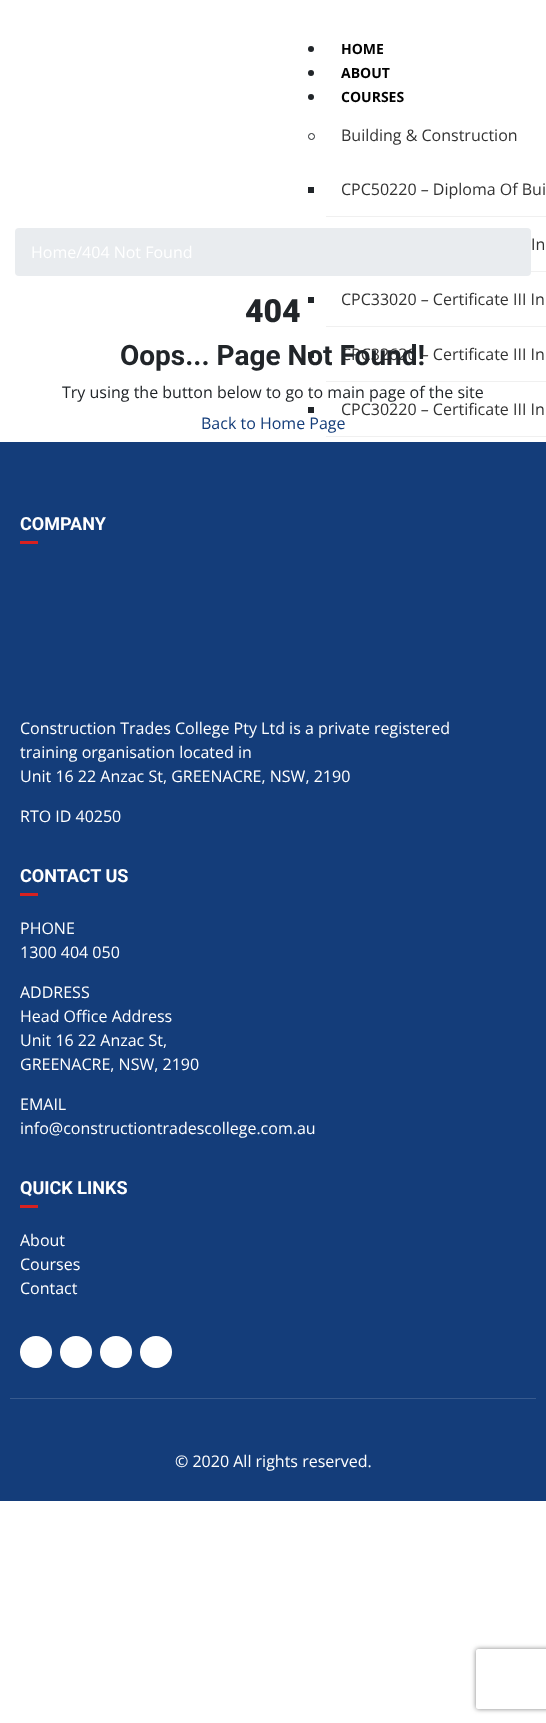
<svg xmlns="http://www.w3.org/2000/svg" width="546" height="1723">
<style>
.a{font:16px Open Sans;fill:#fff}
.b{font:bold 14px Open Sans;fill:#000}
.c{font:16px Open Sans;fill:#333}
.d{font:900 32px Roboto;fill:#212529}
.e{font:bold 28px Roboto;fill:#212529}
.f{font:16px Open Sans;fill:#212529}
.g{font:16px Open Sans;fill:#143d7a}
.h{font:bold 18px Roboto;fill:#fff}
</style>
<defs>
<clipPath id="clip1"><path d="M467 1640h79v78h-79zm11 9h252c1 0 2 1 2 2v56c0 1-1 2-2 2h-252c-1 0-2-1-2-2v-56c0-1 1-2 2-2z" clip-rule="evenodd"/></clipPath>
</defs>
<rect width="100%" height="100%" fill="#fff"/>
<rect fill="#e9ecef" x="15" y="228" width="516" height="48" rx="4"/>
<circle fill="#212529" cx="311" cy="49" r="3"/>
<circle fill="#212529" cx="311" cy="73" r="3"/>
<circle fill="#212529" cx="311" cy="97" r="3"/>
<circle fill="none" stroke="#212529" cx="311.5" cy="136.5" r="3"/>
<path fill="#212529" d="M308 187h6v6H308z"/>
<path fill="#f0f0f0" d="M326 216h220v1H326z"/>
<path fill="#f0f0f0" d="M531 271h15v1H531z"/>
<path fill="#212529" d="M308 297h6v6H308z"/>
<path fill="#f0f0f0" d="M326 326h220v1H326z"/>
<path fill="#212529" d="M308 352h6v6H308z"/>
<path fill="#f0f0f0" d="M326 381h220v1H326z"/>
<path fill="#212529" d="M308 407h6v6H308z"/>
<path fill="#f0f0f0" d="M326 436h220v1H326z"/>
<path fill="#143d7a" d="M0 442h546v1059H0z"/>
<path fill="#d72120" d="M20 541h18v3H20z"/>
<path fill="#d72120" d="M20 893h18v3H20z"/>
<path fill="#d72120" d="M20 1205h18v3H20z"/>
<circle fill="#fff" cx="36" cy="1352" r="16"/>
<circle fill="#fff" cx="76" cy="1352" r="16"/>
<circle fill="#fff" cx="116" cy="1352" r="16"/>
<circle fill="#fff" cx="156" cy="1352" r="16"/>
<path fill="#375a8e" d="M10 1398h526v1H10z"/>
<g clip-path="url(#clip1)">
<rect fill="#808080" filter="blur(2.5px)" x="476" y="1649" width="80" height="60" rx="2"/>
</g>
<text class="a" x="31" y="258">Home/404 Not Found</text>
<text class="b" x="341" y="54">HOME</text>
<text class="b" x="341" y="78">ABOUT</text>
<text class="b" x="341" y="102">COURSES</text>
<text class="c" x="341" y="141">Building &amp; Construction</text>
<text class="c" x="341" y="195">CPC50220 – Diploma Of Bui</text>
<text class="c" x="531" y="250">In</text>
<text class="c" x="341" y="305">CPC33020 – Certificate III In</text>
<text class="c" x="341" y="360">CPC32620 – Certificate III In</text>
<text class="c" x="341" y="415">CPC30220 – Certificate III In</text>
<text class="d" x="245" y="322">404</text>
<text class="e" x="120" y="365">Oops... Page Not Found!</text>
<text class="f" x="62" y="398">Try using the button below to go to main page of the site</text>
<text class="g" x="201" y="429">Back to Home Page</text>
<text class="h" x="20" y="530">COMPANY</text>
<text class="a" x="20" y="734">Construction Trades College Pty Ltd is a private registered</text>
<text class="a" x="20" y="758">training organisation located in</text>
<text class="a" x="20" y="782">Unit 16 22 Anzac St, GREENACRE, NSW, 2190</text>
<text class="a" x="20" y="822">RTO ID 40250</text>
<text class="h" x="20" y="882">CONTACT US</text>
<text class="a" x="20" y="934">PHONE</text>
<text class="a" x="20" y="958">1300 404 050</text>
<text class="a" x="20" y="998">ADDRESS</text>
<text class="a" x="20" y="1022">Head Office Address</text>
<text class="a" x="20" y="1046">Unit 16 22 Anzac St,</text>
<text class="a" x="20" y="1070">GREENACRE, NSW, 2190</text>
<text class="a" x="20" y="1110">EMAIL</text>
<text class="a" x="20" y="1134">info@constructiontradescollege.com.au</text>
<text class="h" x="20" y="1194">QUICK LINKS</text>
<text class="a" x="20" y="1246">About</text>
<text class="a" x="20" y="1270">Courses</text>
<text class="a" x="20" y="1294">Contact</text>
<text class="a" x="175" y="1467">© 2020 All rights reserved.</text>
</svg>
